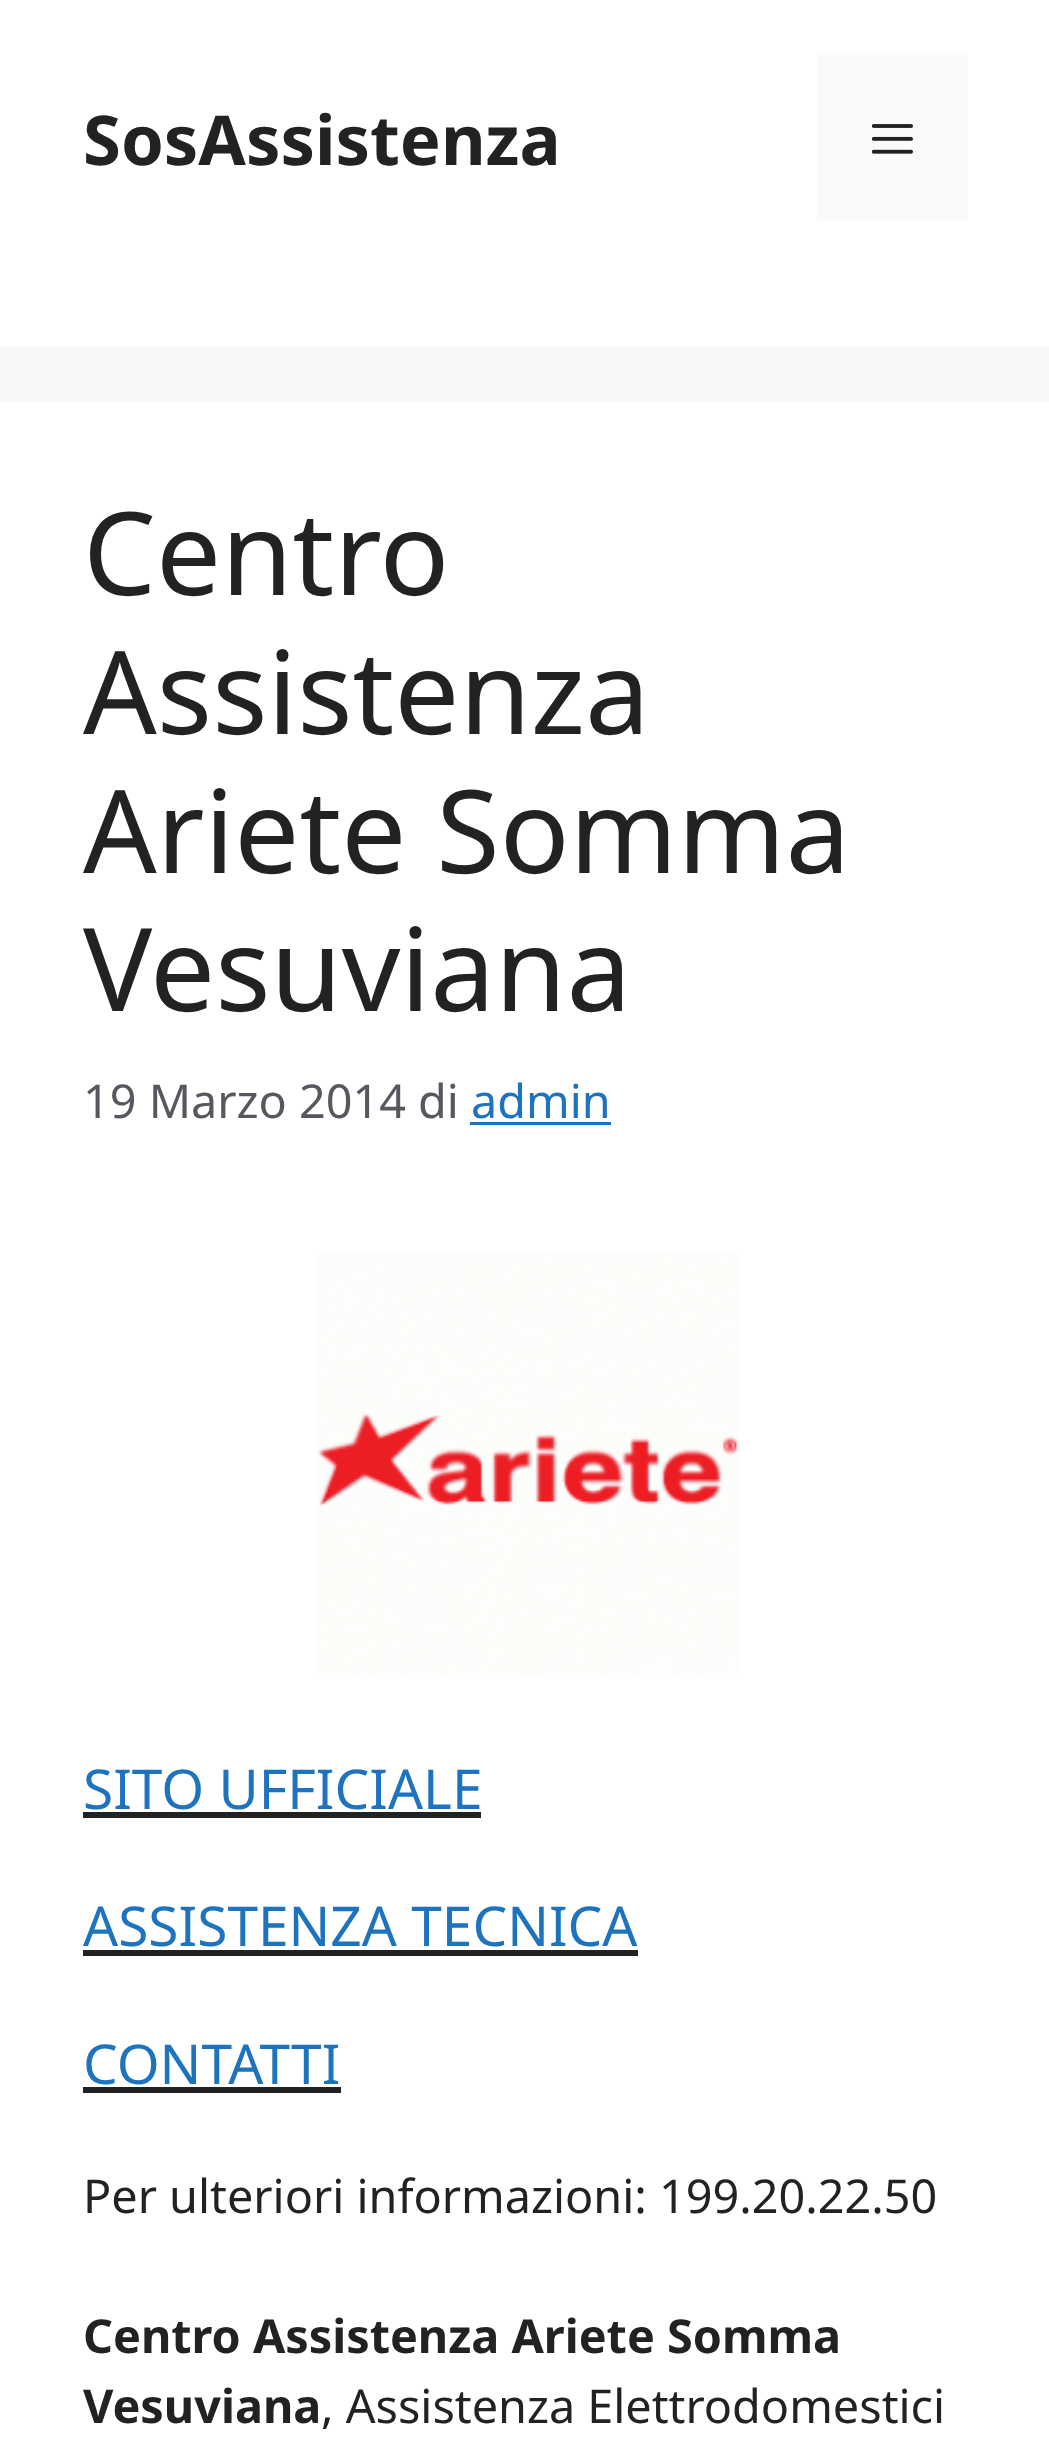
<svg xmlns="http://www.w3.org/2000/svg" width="1049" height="2447">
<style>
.a{font:bold 68.75px Noto Sans;fill:#222}
.b{font:115.5px Noto Sans;fill:#222}
.c{font:46.75px Noto Sans;fill:#575760}
.d{font:46.75px Noto Sans;fill:#1e73be}
.e{font:55px Noto Sans;fill:#1e73be}
.f{font:46.75px Noto Sans;fill:#222}
.g{font:bold 46.75px Noto Sans;fill:#222}
</style>
<rect width="100%" height="100%" fill="#f7f8f9"/>
<path fill="#fff" d="M0 0h1049v347H0z"/>
<path fill="#fafafa" d="M817 55h151v165H817z"/>
<image href="1.png" x="872" y="124" width="41" height="30"/>
<path fill="#fff" d="M0 402h1049v2045H0z"/>
<path fill="#1e73be" d="M470 1122h141v3H470z"/>
<image href="2.png" x="317" y="1251" width="422" height="423"/>
<path fill="#222" d="M83 1812h398v6H83z"/>
<path fill="#222" d="M83 1950h555v6H83z"/>
<path fill="#222" d="M83 2087h258v6H83z"/>
<text class="a" x="83" y="165">SosAssistenza</text>
<text class="b" x="83" y="595">Centro</text>
<text class="b" x="83" y="734">Assistenza</text>
<text class="b" x="83" y="873">Ariete Somma</text>
<text class="b" x="83" y="1011">Vesuviana</text>
<text class="c" x="83" y="1118">19 Marzo 2014 di</text>
<text class="d" x="471" y="1118">admin</text>
<text class="e" x="83" y="1809">SITO UFFICIALE</text>
<text class="e" x="83" y="1946">ASSISTENZA TECNICA</text>
<text class="e" x="83" y="2084">CONTATTI</text>
<text class="f" x="83" y="2213">Per ulteriori informazioni: 199.20.22.50</text>
<text class="g" x="83" y="2353">Centro Assistenza Ariete Somma</text>
<text class="g" x="83" y="2423">Vesuviana</text>
<text class="f" x="321" y="2423">, Assistenza Elettrodomestici</text>
</svg>
